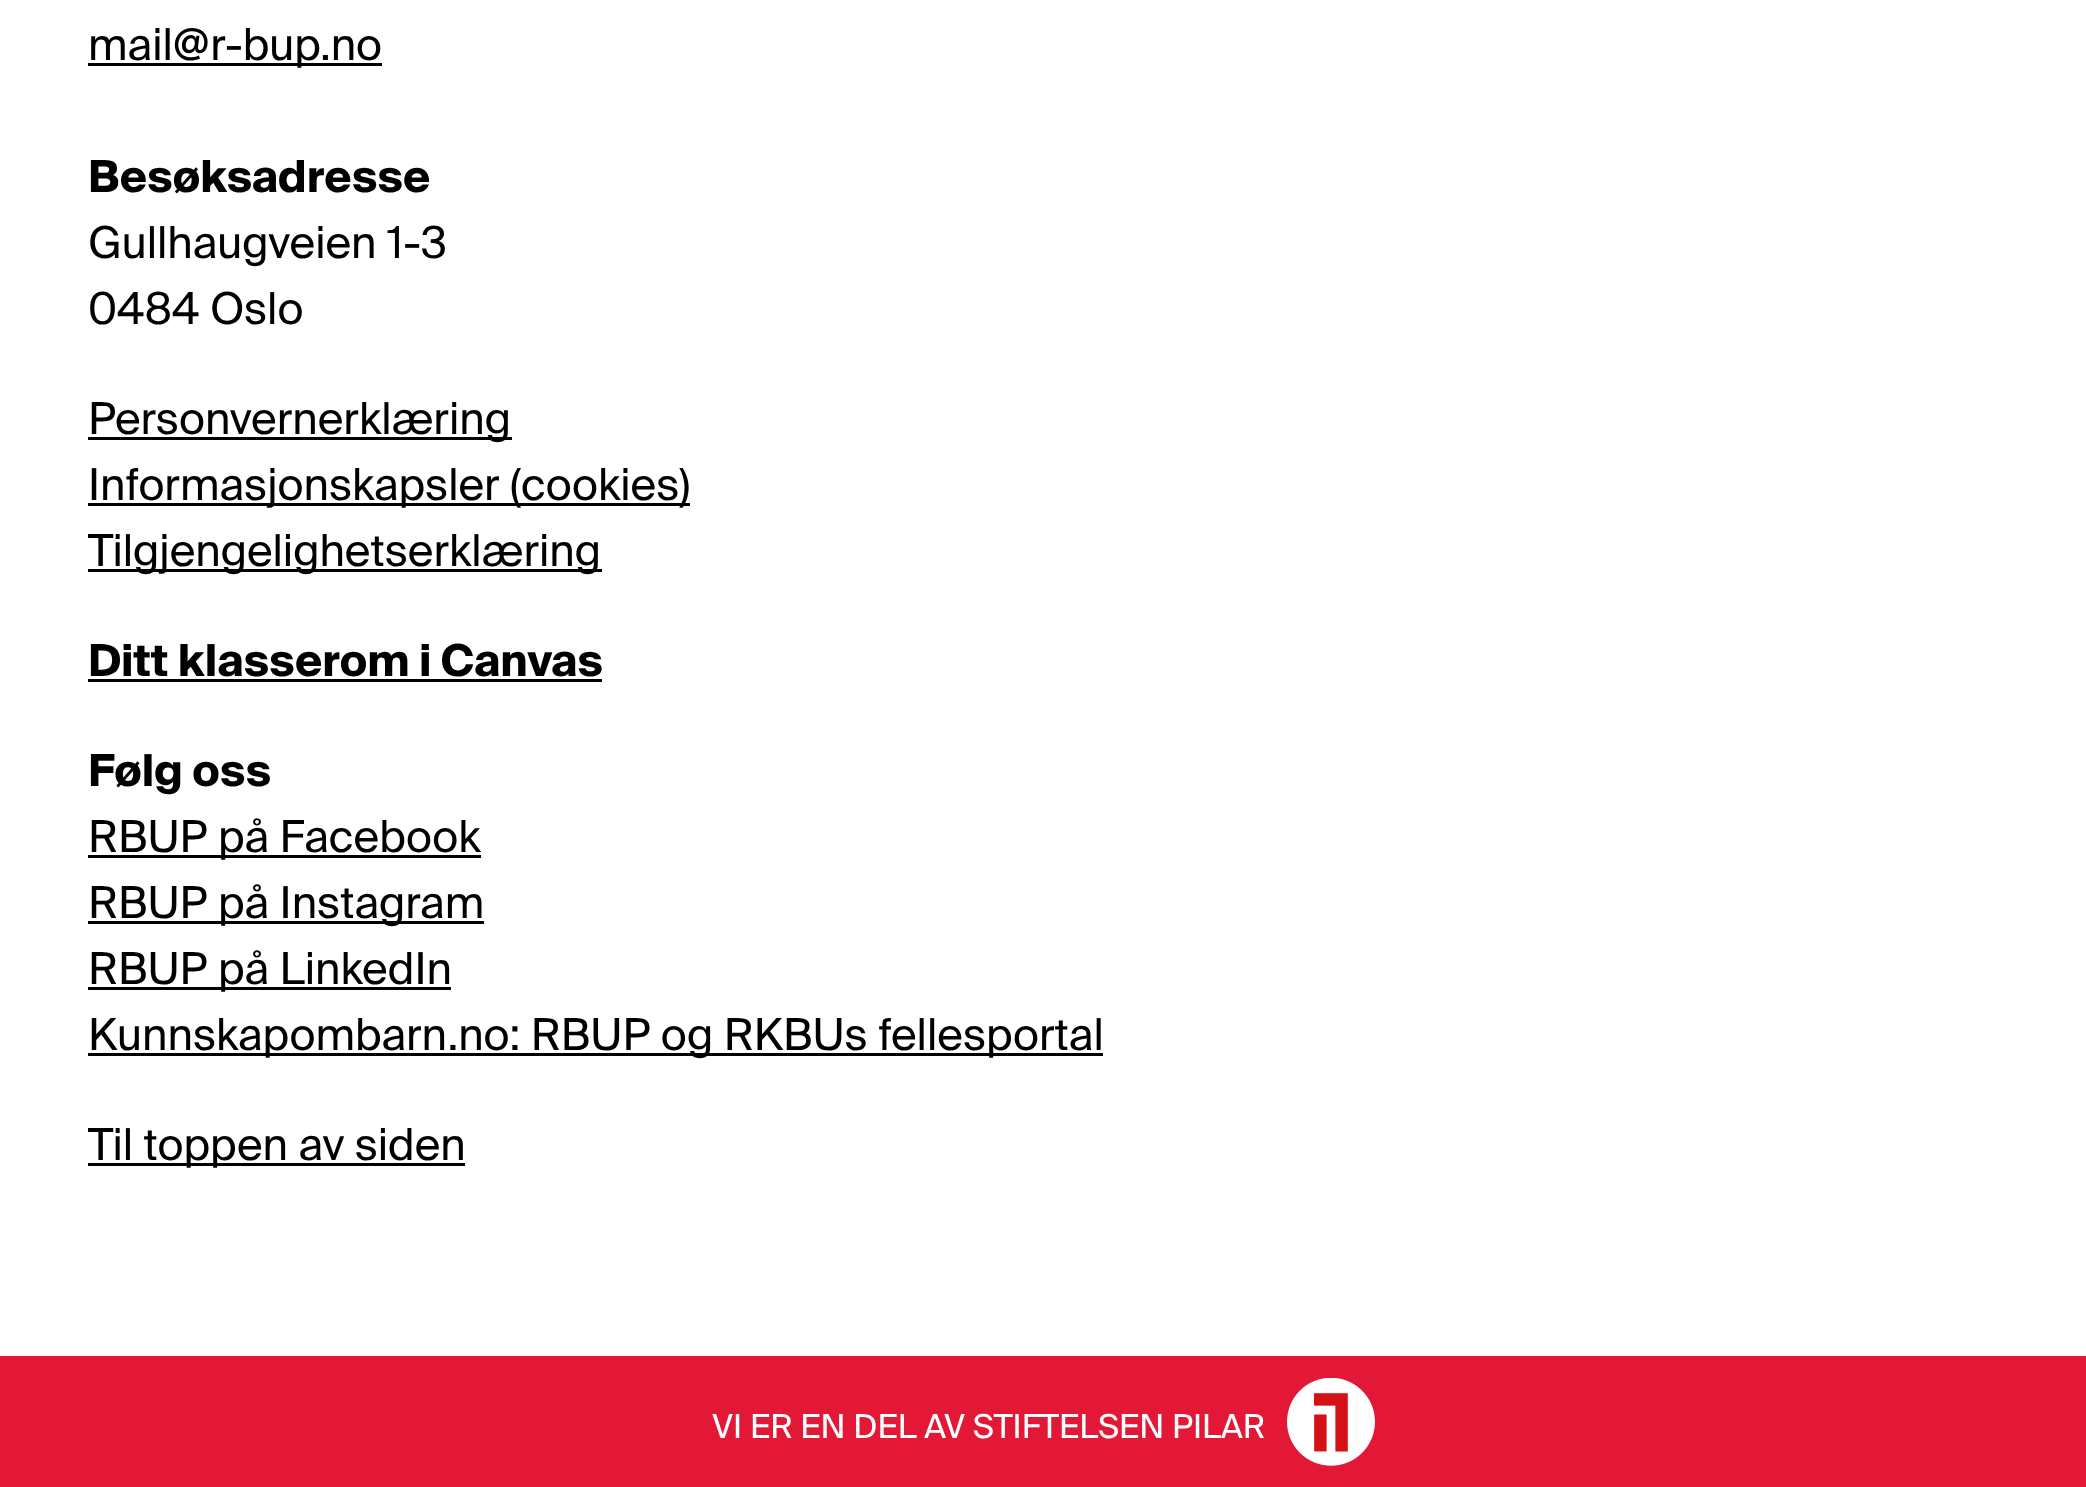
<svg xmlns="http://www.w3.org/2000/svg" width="2086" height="1487">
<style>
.a{font:44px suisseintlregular;fill:#000}
.b{font:bold 44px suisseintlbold;fill:#000}
.c{font:33px suisseintlregular;fill:#fff}
</style>
<rect width="100%" height="100%" fill="#fff"/>
<path fill="#000" d="M88 63h294v3H88z"/>
<path fill="#000" d="M88 437h424v3H88z"/>
<path fill="#000" d="M88 503h602v3H88z"/>
<path fill="#000" d="M88 569h514v3H88z"/>
<path fill="#000" d="M88 679h514v3H88z"/>
<path fill="#000" d="M88 855h393v3H88z"/>
<path fill="#000" d="M88 921h396v3H88z"/>
<path fill="#000" d="M88 987h363v3H88z"/>
<path fill="#000" d="M88 1053h1015v3H88z"/>
<path fill="#000" d="M88 1163h377v3H88z"/>
<path fill="#e31836" d="M0 1356h2086v131H0z"/>
<image href="1.png" x="1287" y="1378" width="88" height="88"/>
<text class="a" x="88" y="60">mail@r-bup.no</text>
<text class="b" x="88" y="192">Besøksadresse</text>
<text class="a" x="88" y="258">Gullhaugveien 1-3</text>
<text class="a" x="88" y="324">0484 Oslo</text>
<text class="a" x="88" y="434">Personvernerklæring</text>
<text class="a" x="88" y="500">Informasjonskapsler (cookies)</text>
<text class="a" x="88" y="566">Tilgjengelighetserklæring</text>
<text class="b" x="88" y="676">Ditt klasserom i Canvas</text>
<text class="b" x="88" y="786">Følg oss</text>
<text class="a" x="88" y="852">RBUP på Facebook</text>
<text class="a" x="88" y="918">RBUP på Instagram</text>
<text class="a" x="88" y="984">RBUP på LinkedIn</text>
<text class="a" x="88" y="1050">Kunnskapombarn.no: RBUP og RKBUs fellesportal</text>
<text class="a" x="88" y="1160">Til toppen av siden</text>
<text class="c" x="712" y="1438">VI ER EN DEL AV STIFTELSEN PILAR</text>
</svg>
